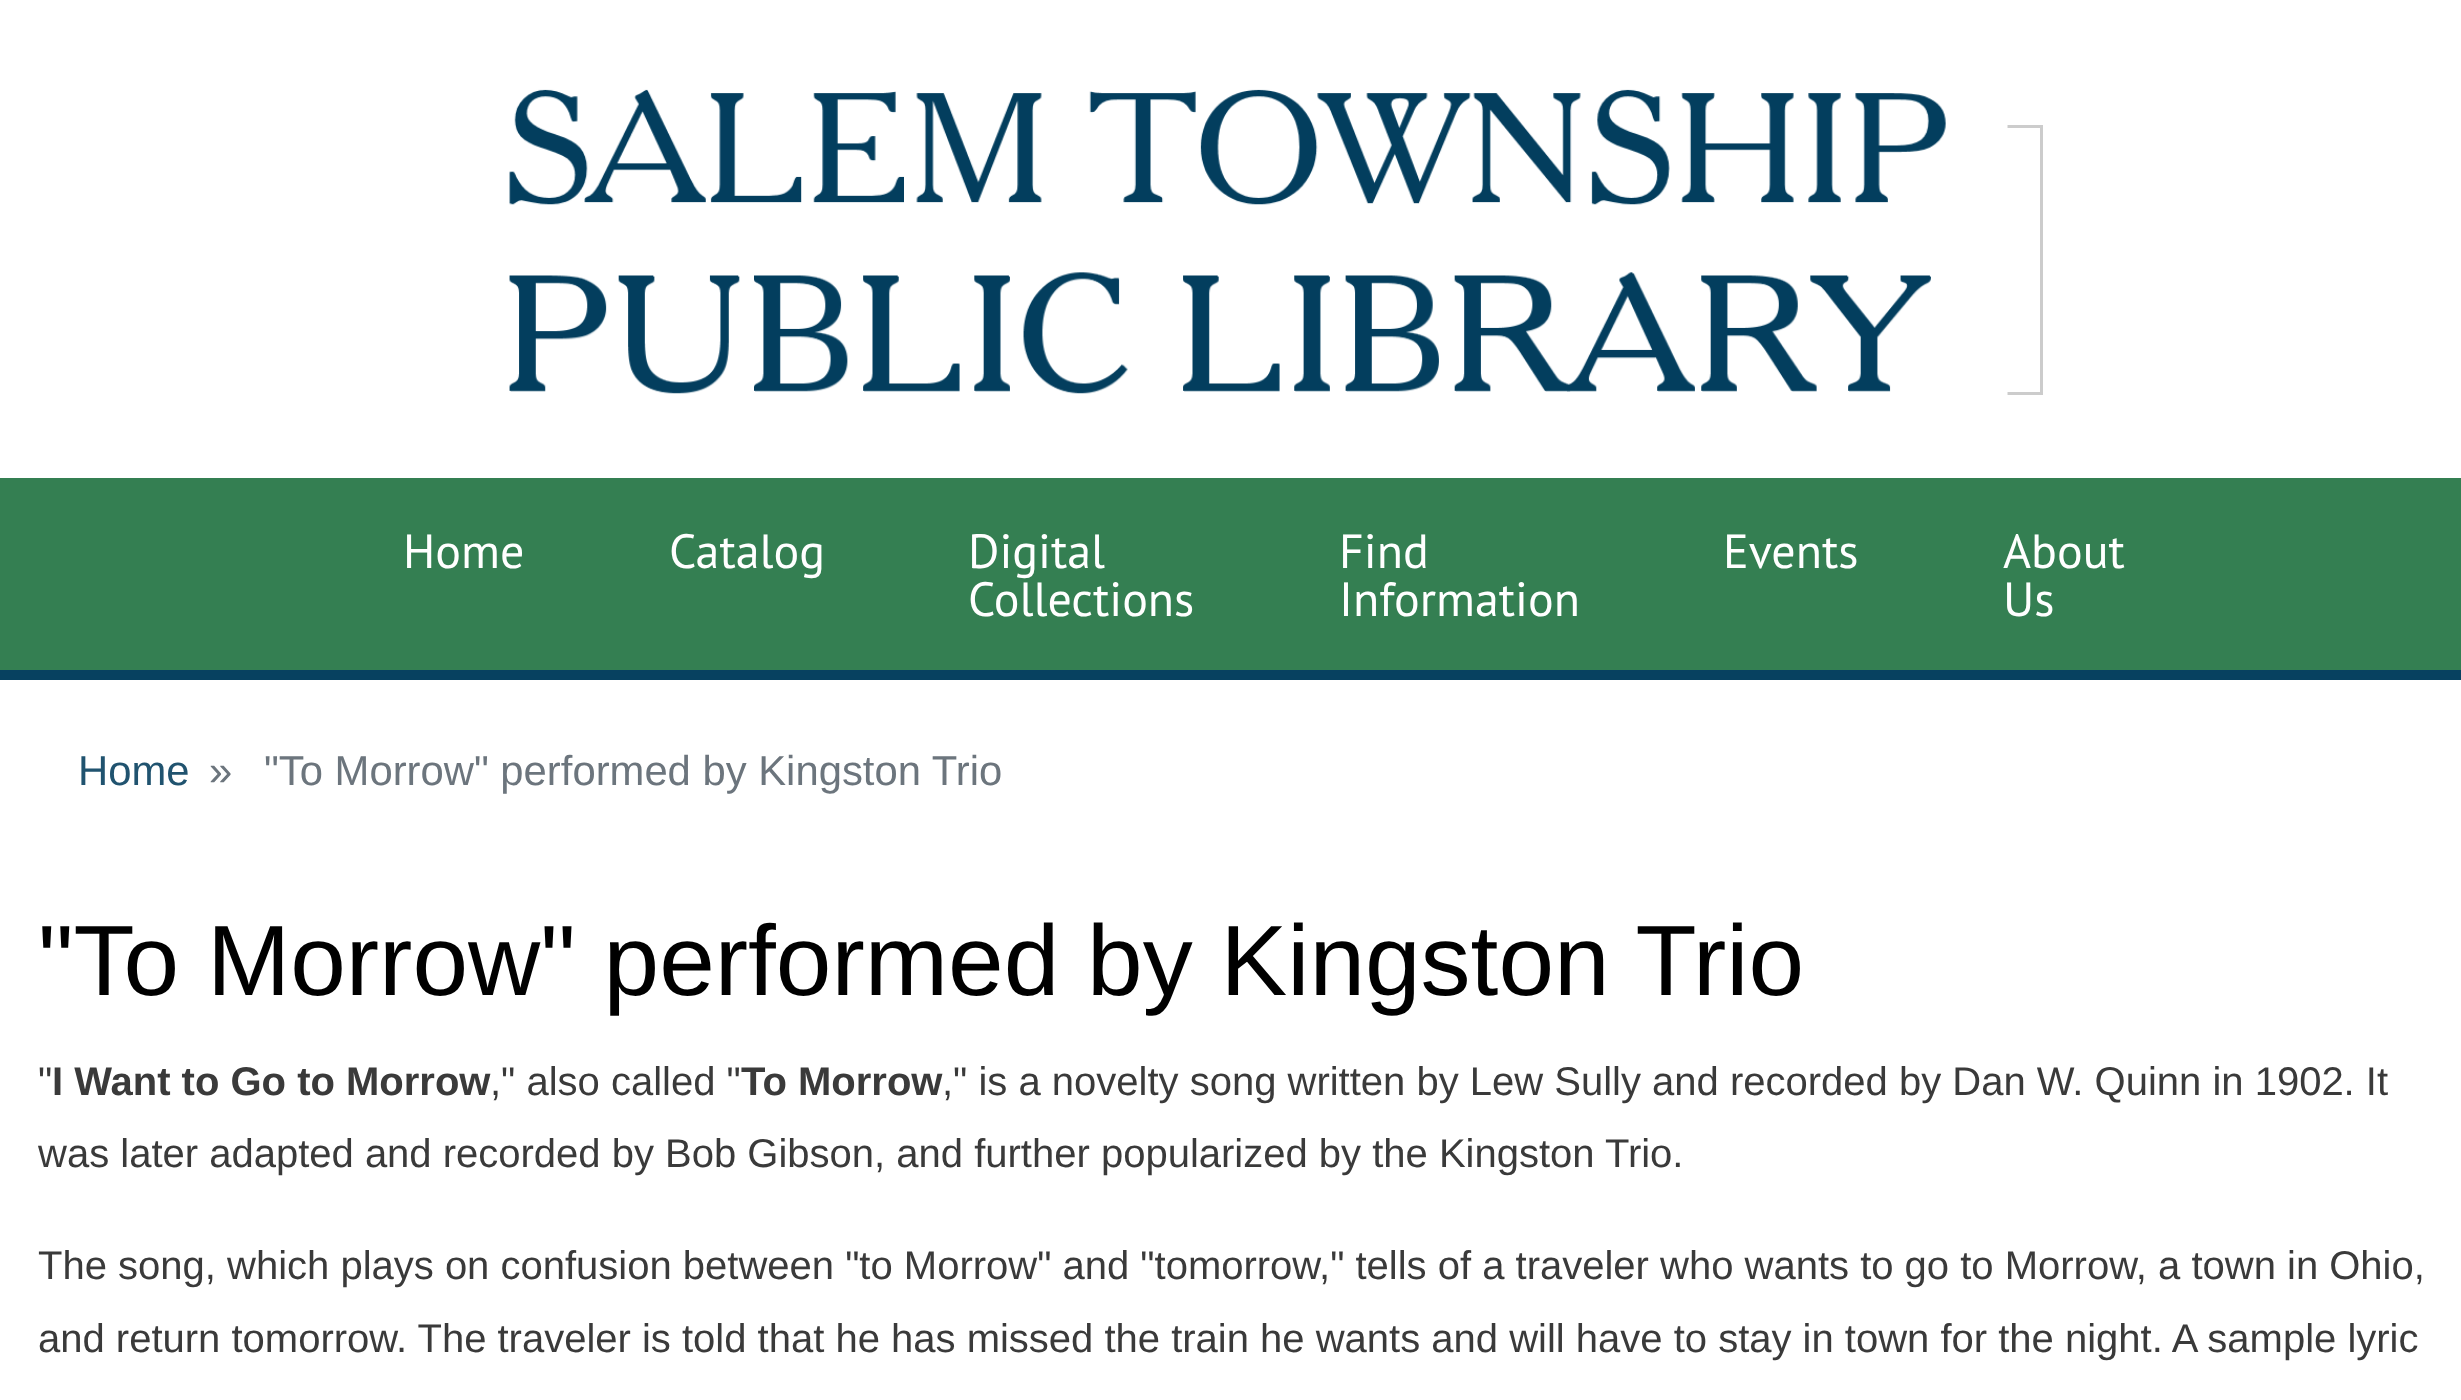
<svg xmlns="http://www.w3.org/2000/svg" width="2461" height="1400">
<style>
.a{font:48px PT Sans;fill:#fff}
.b{font:41.8px Liberation Sans;fill:#20536f}
.c{font:41.8px Liberation Sans;fill:#6c757d}
.d{font:100px Liberation Sans;fill:#000}
.e{font:40px Liberation Sans;fill:#3a3a3a}
.f{font:bold 40px Liberation Sans;fill:#3a3a3a}
</style>
<rect width="100%" height="100%" fill="#fff"/>
<path fill="none" stroke="#ccc" stroke-width="3" d="M1286.5 126.5h755v267H1286.5z"/>
<image href="1.png" x="509" y="38" width="1499" height="357"/>
<path fill="#347f52" d="M0 478h2461v192H0z"/>
<path fill="#074160" d="M0 670h2461v10H0z"/>
<text class="a" x="403" y="568">Home</text>
<text class="a" x="669" y="568">Catalog</text>
<text class="a" x="968" y="568">Digital</text>
<text class="a" x="968" y="616">Collections</text>
<text class="a" x="1339" y="568">Find</text>
<text class="a" x="1339" y="616">Information</text>
<text class="a" x="1723" y="568">Events</text>
<text class="a" x="2003" y="568">About</text>
<text class="a" x="2003" y="616">Us</text>
<text class="b" x="78" y="785">Home</text>
<text class="c" x="209" y="785">»</text>
<text class="c" x="264" y="785">"To Morrow" performed by Kingston Trio</text>
<text class="d" x="38" y="995">"To Morrow" performed by Kingston Trio</text>
<text class="e" x="38" y="1095">"</text>
<text class="f" x="52" y="1095">I Want to Go to Morrow</text>
<text class="e" x="490" y="1095">," also called "</text>
<text class="f" x="741" y="1095">To Morrow</text>
<text class="e" x="942" y="1095">," is a novelty song written by Lew Sully and recorded by Dan W. Quinn in 1902. It</text>
<text class="e" x="38" y="1167">was later adapted and recorded by Bob Gibson, and further popularized by the Kingston Trio.</text>
<text class="e" x="38" y="1279">The song, which plays on confusion between "to Morrow" and "tomorrow," tells of a traveler who wants to go to Morrow, a town in Ohio,</text>
<text class="e" x="38" y="1352">and return tomorrow. The traveler is told that he has missed the train he wants and will have to stay in town for the night. A sample lyric</text>
</svg>
